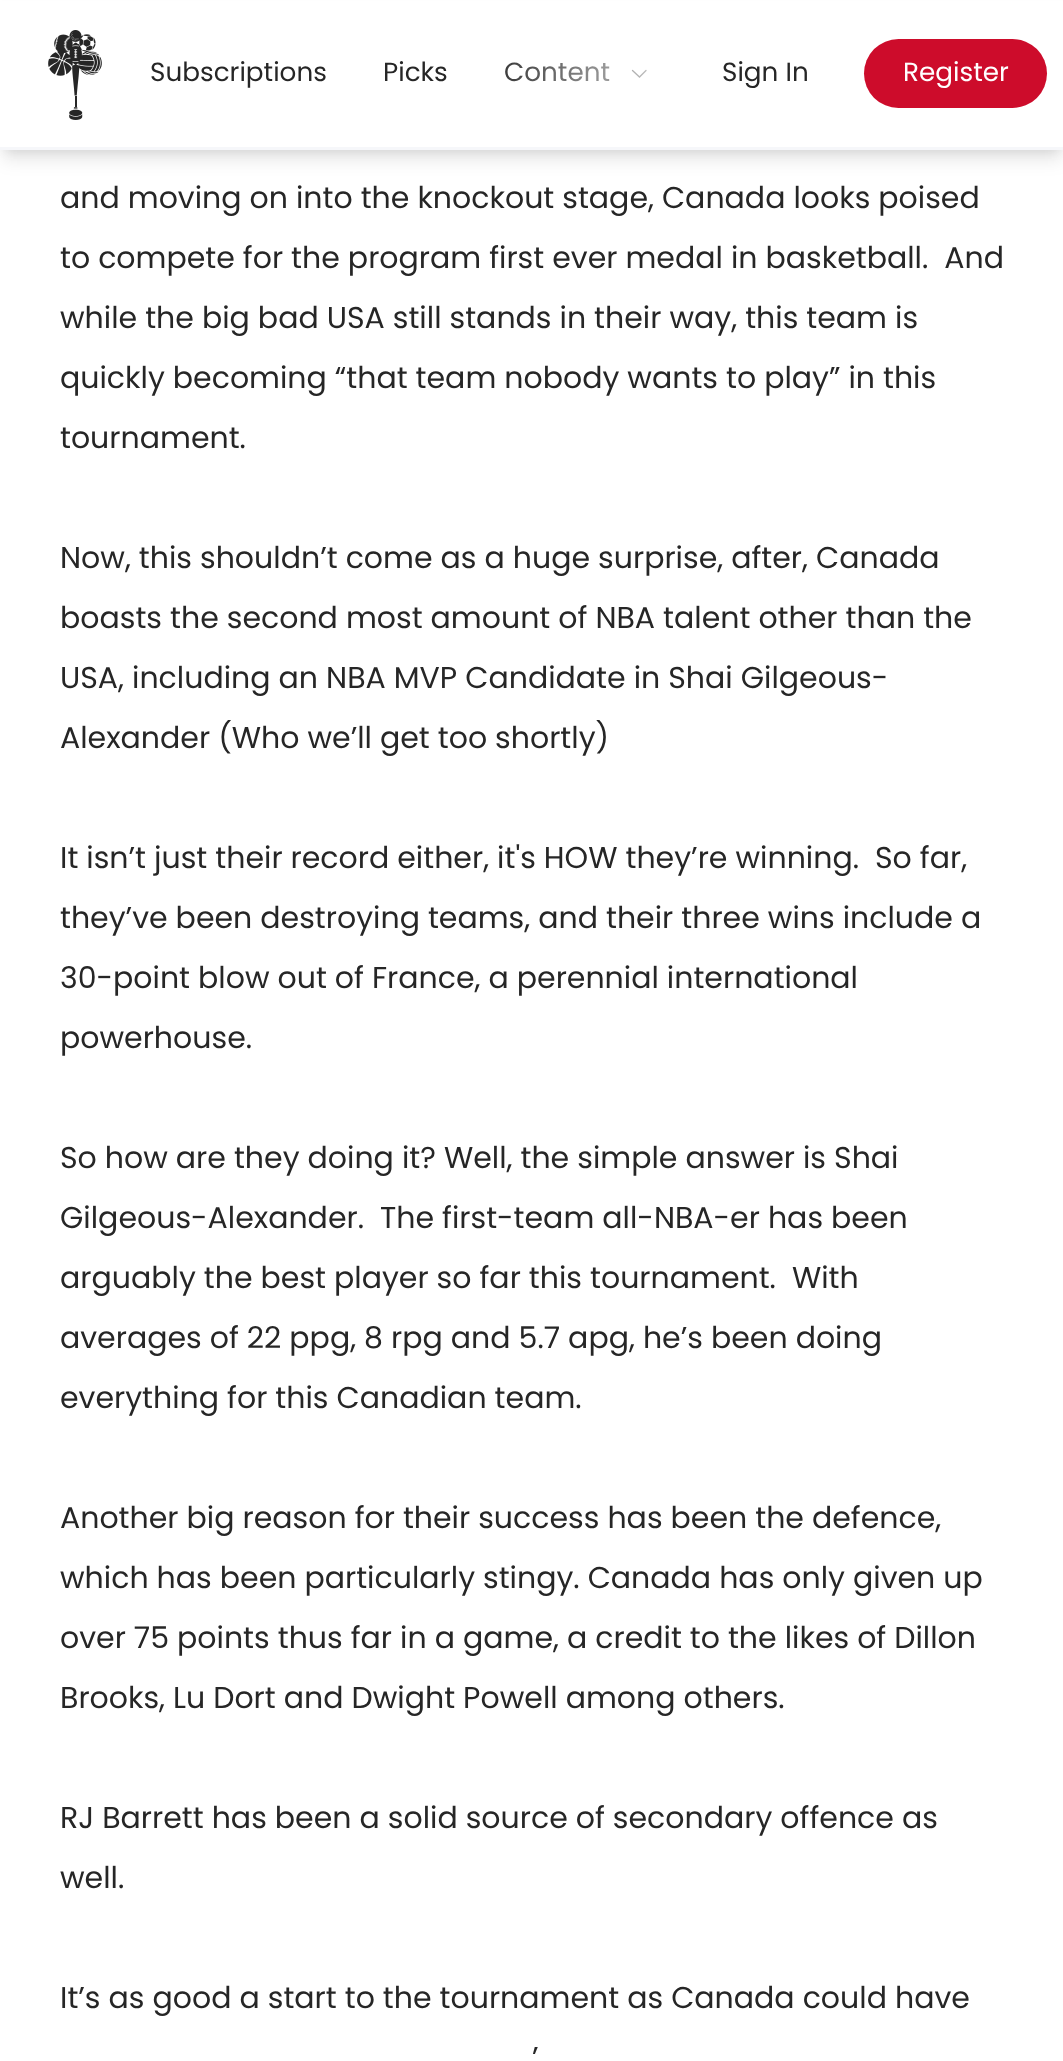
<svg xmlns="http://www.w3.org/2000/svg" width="1063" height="2061">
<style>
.a{font:26.25px Poppins;fill:#262626}
.b{font:26.25px Poppins;fill:#fff}
.c{font:30px Poppins;fill:#262626}
</style>
<defs>
<linearGradient id="g1" gradientUnits="userSpaceOnUse" x1="720" y1="68" x2="480" y2="67"><stop offset="0" stop-color="#fff"/><stop offset="1" stop-color="#fff" stop-opacity="0"/></linearGradient>
</defs>
<rect width="100%" height="100%" fill="#fff"/>
<path fill="#0000001a" filter="blur(6px)" d="M6 12h1053v138H6z"/>
<path fill="#0000001a" filter="blur(9px)" d="M3 15h1059v144H3z"/>
<path fill="#fff" d="M0 1h1063v146H0z"/>
<path fill="#f6f7fa" d="M0 147h1063v3H0z"/>
<image href="1.png" x="48" y="30" width="54" height="90"/>
<path fill="none" stroke="#262626" stroke-width="1.3" stroke-linecap="round" d="M632.5 70.5l7 6.5l6.5-6.5"/>
<rect fill="#cd0c2b" x="864" y="39" width="183" height="69" rx="34.5"/>
<text class="a" x="150" y="81">Subscriptions</text>
<text class="a" x="383" y="81">Picks</text>
<text class="a" x="504" y="81">Content</text>
<path fill="url(#g1)" d="M505 62h142v20H505z"/>
<text class="a" x="722" y="81">Sign In</text>
<text class="b" x="903" y="81">Register</text>
<text class="c" x="60" y="208">and moving on into the knockout stage, Canada looks poised</text>
<text class="c" xml:space="preserve" x="60" y="268">to compete for the program first ever medal in basketball.  And</text>
<text class="c" x="60" y="328">while the big bad USA still stands in their way, this team is</text>
<text class="c" x="60" y="388">quickly becoming “that team nobody wants to play” in this</text>
<text class="c" x="60" y="448">tournament.</text>
<text class="c" x="60" y="568">Now, this shouldn’t come as a huge surprise, after, Canada</text>
<text class="c" x="60" y="628">boasts the second most amount of NBA talent other than the</text>
<text class="c" x="60" y="688">USA, including an NBA MVP Candidate in Shai Gilgeous-</text>
<text class="c" x="60" y="748">Alexander (Who we’ll get too shortly)</text>
<text class="c" xml:space="preserve" x="60" y="868">It isn’t just their record either, it's HOW they’re winning.  So far,</text>
<text class="c" x="60" y="928">they’ve been destroying teams, and their three wins include a</text>
<text class="c" x="60" y="988">30-point blow out of France, a perennial international</text>
<text class="c" x="60" y="1048">powerhouse.</text>
<text class="c" x="60" y="1168">So how are they doing it? Well, the simple answer is Shai</text>
<text class="c" xml:space="preserve" x="60" y="1228">Gilgeous-Alexander.  The first-team all-NBA-er has been</text>
<text class="c" xml:space="preserve" x="60" y="1288">arguably the best player so far this tournament.  With</text>
<text class="c" x="60" y="1348">averages of 22 ppg, 8 rpg and 5.7 apg, he’s been doing</text>
<text class="c" x="60" y="1408">everything for this Canadian team.</text>
<text class="c" x="60" y="1528">Another big reason for their success has been the defence,</text>
<text class="c" x="60" y="1588">which has been particularly stingy. Canada has only given up</text>
<text class="c" x="60" y="1648">over 75 points thus far in a game, a credit to the likes of Dillon</text>
<text class="c" x="60" y="1708">Brooks, Lu Dort and Dwight Powell among others.</text>
<text class="c" x="60" y="1828">RJ Barrett has been a solid source of secondary offence as</text>
<text class="c" x="60" y="1888">well.</text>
<text class="c" x="60" y="2008">It’s as good a start to the tournament as Canada could have</text>
<text class="c" x="532" y="2068">’</text>
</svg>
